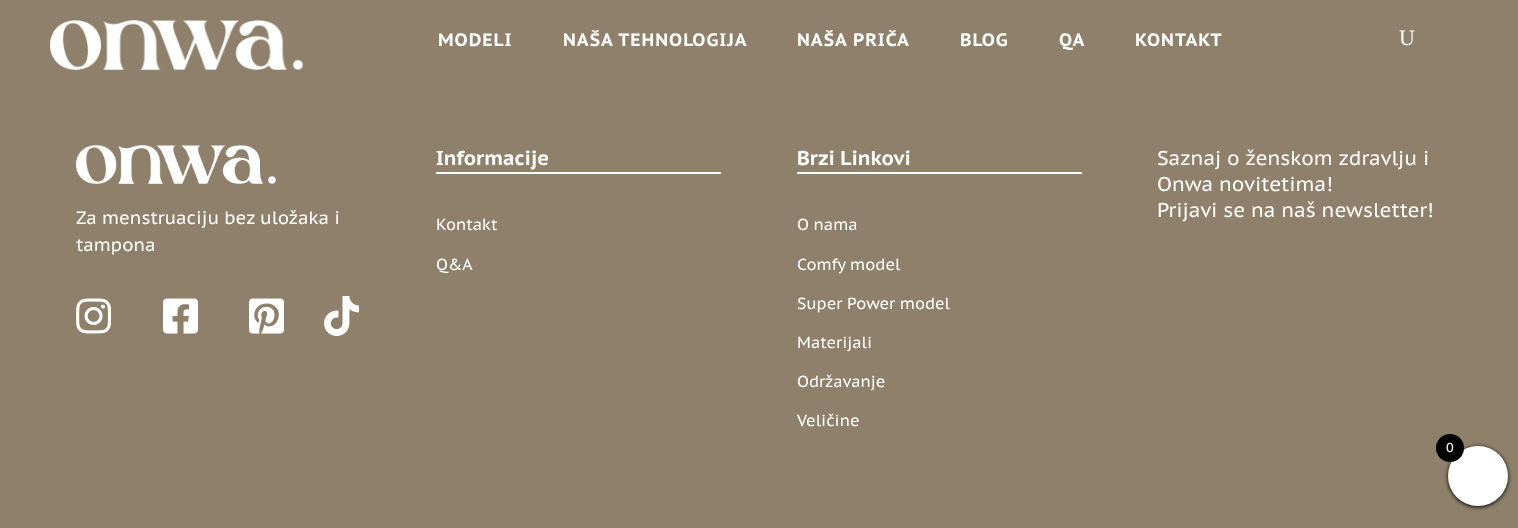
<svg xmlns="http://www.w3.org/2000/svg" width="1518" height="528">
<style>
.a{font:bold 18px PT Sans Caption;letter-spacing:1px;fill:#fff}
.b{font:22px Liberation Serif;fill:#fff}
.c{font:18px PT Sans Caption;fill:#fff}
.d{font:bold 20px PT Sans Caption;fill:#fff}
.e{font:16px PT Sans Caption;fill:#fff}
.f{font:20px PT Sans Caption;fill:#fff}
.g{font:13px PT Sans Caption;fill:#fff}
</style>
<rect width="100%" height="100%" fill="#8e806a"/>
<image href="1.png" x="50" y="20" width="253" height="50"/>
<image href="2.png" x="76" y="145" width="200" height="39"/>
<image href="3.png" x="76" y="298" width="36" height="36"/>
<image href="4.png" x="163" y="298" width="35" height="36"/>
<image href="5.png" x="249" y="298" width="35" height="36"/>
<image href="6.png" x="324" y="296" width="35" height="40"/>
<path fill="#fff" d="M436 172h285v2H436z"/>
<path fill="#fff" d="M797 172h285v2H797z"/>
<rect fill="#000" filter="blur(2px)" x="1448" y="447" width="60" height="60" rx="30"/>
<circle fill="#fff" cx="1478" cy="476" r="30"/>
<circle fill="#000" cx="1450" cy="448" r="14"/>
<text class="a" x="438" y="46">MODELI</text>
<text class="a" x="563" y="46">NAŠA TEHNOLOGIJA</text>
<text class="a" x="797" y="46">NAŠA PRIČA</text>
<text class="a" x="960" y="46">BLOG</text>
<text class="a" x="1059" y="46">QA</text>
<text class="a" x="1135" y="46">KONTAKT</text>
<text class="b" x="1399" y="45">U</text>
<text class="c" x="76" y="224">Za menstruaciju bez uložaka i</text>
<text class="c" x="76" y="251">tampona</text>
<text class="d" x="436" y="165">Informacije</text>
<text class="e" x="436" y="230">Kontakt</text>
<text class="e" x="436" y="270">Q&amp;A</text>
<text class="d" x="797" y="165">Brzi Linkovi</text>
<text class="e" x="797" y="230">O nama</text>
<text class="e" x="797" y="270">Comfy model</text>
<text class="e" x="797" y="309">Super Power model</text>
<text class="e" x="797" y="348">Materijali</text>
<text class="e" x="797" y="387">Održavanje</text>
<text class="e" x="797" y="426">Veličine</text>
<text class="f" x="1157" y="165">Saznaj o ženskom zdravlju i</text>
<text class="f" x="1157" y="191">Onwa novitetima!</text>
<text class="f" x="1157" y="217">Prijavi se na naš newsletter!</text>
<text class="g" x="1446" y="452">0</text>
</svg>
